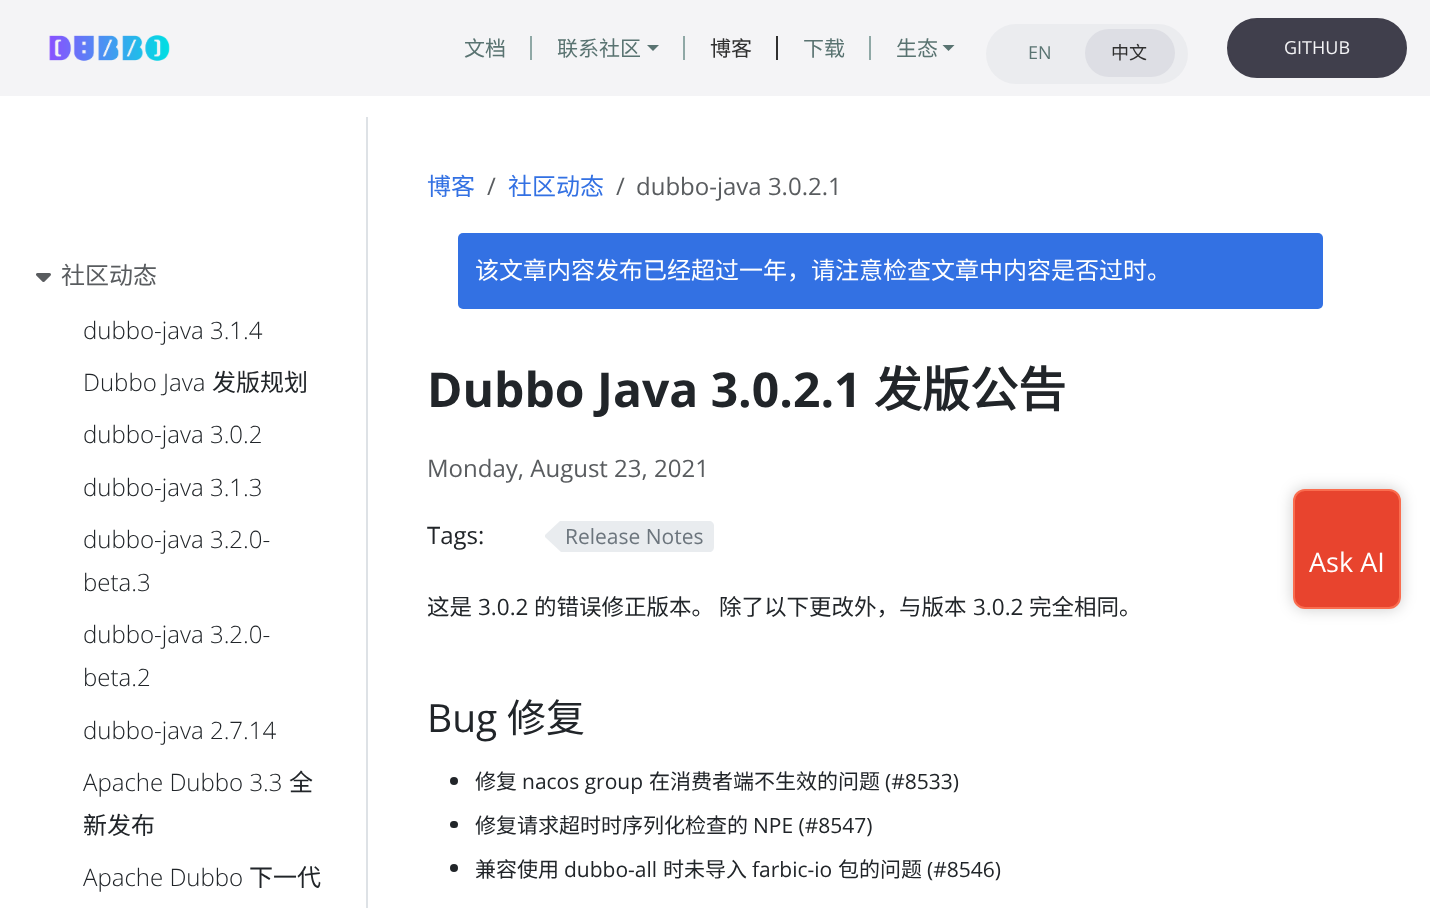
<svg xmlns="http://www.w3.org/2000/svg" width="1430" height="908">
<style>
.a{font:21px Noto Sans CJK SC;fill:#597371}
.b{font:21px Noto Sans CJK SC;fill:#303030}
.c{font:18px Open Sans;fill:#597371}
.d{font:18px Noto Sans CJK SC;fill:#303030}
.e{font:18px Open Sans;fill:#f4f4f6}
.f{font:24px Noto Sans CJK SC;fill:#595c5f}
.g{font:300 24px Open Sans;fill:#212529}
.h{font:24px Noto Sans CJK SC;fill:#212529}
.i{font:24px Noto Sans CJK SC;fill:#3371e3}
.j{font:24px Open Sans;fill:#595c5f}
.k{font:24px Noto Sans CJK SC;fill:#fff}
.l{font:bold 48px Open Sans;fill:#212529}
.m{font:bold 48px Noto Sans CJK SC;fill:#212529}
.n{font:24px Open Sans;fill:#212529}
.o{font:21px Open Sans;fill:#6c757d}
.p{font:22.5px Noto Sans CJK SC;fill:#212529}
.q{font:22.5px Open Sans;fill:#212529}
.r{font:39px Open Sans;fill:#212529}
.s{font:39px Noto Sans CJK SC;fill:#212529}
.t{font:21px Noto Sans CJK SC;fill:#212529}
.u{font:21px Open Sans;fill:#212529}
.v{font:27px Open Sans;fill:#fff}
</style>
<rect width="100%" height="100%" fill="#fff"/>
<path fill="#f4f4f6" d="M0 0h1430v96H0z"/>
<image href="1.png" x="49" y="35" width="121" height="26"/>
<path fill="#8fa8a6" d="M530 36h2v24H530z"/>
<path fill="#597371" d="M647 45h12l-6 6z"/>
<path fill="#8fa8a6" d="M683 36h2v24H683z"/>
<path fill="#303030" d="M776 36h2v24H776z"/>
<path fill="#8fa8a6" d="M869 36h2v24H869z"/>
<path fill="#597371" d="M942.5 45h12l-6 6z"/>
<rect fill="#ebecef" x="986" y="24" width="202" height="60" rx="30"/>
<rect fill="#dddee4" x="1085" y="29" width="90" height="48" rx="24"/>
<rect fill="#403f4c" stroke="#403f4c" stroke-width="2" x="1228" y="19" width="178" height="58" rx="29"/>
<path fill="#dee2e6" d="M366 117h2v791H366z"/>
<image href="2.png" x="36" y="273" width="15" height="9"/>
<rect fill="#3371e3" x="458" y="233" width="865" height="76" rx="5"/>
<path fill="#e9ecef" d="M560 521h149c3 0 5 2 5 5v21c0 2-1 4-3 5h-150l-16-15v-2z"/>
<circle fill="#212529" cx="454" cy="781" r="4"/>
<rect fill="#212529" x="450" y="821" width="8" height="7" rx="3.5"/>
<circle fill="#212529" cx="454" cy="868" r="4"/>
<rect fill="#00000033" filter="blur(7.5px)" x="1293" y="489" width="108" height="120" rx="12"/>
<rect fill="#e8442e" stroke="#fa6d4f" stroke-width="2" x="1294" y="490" width="106" height="118" rx="11"/>
<text class="a" x="464" y="56">文档</text>
<text class="a" x="557" y="56">联系社区</text>
<text class="b" x="710" y="56">博客</text>
<text class="a" x="803" y="56">下载</text>
<text class="a" x="896" y="56">生态</text>
<text class="c" x="1028" y="59">EN</text>
<text class="d" x="1111" y="59">中文</text>
<text class="e" x="1284" y="54">GITHUB</text>
<text class="f" x="61" y="284">社区动态</text>
<text class="g" x="83" y="339">dubbo-java 3.1.4</text>
<text class="g" x="83" y="391">Dubbo Java</text>
<text class="h" x="212" y="391">发版规划</text>
<text class="g" x="83" y="443">dubbo-java 3.0.2</text>
<text class="g" x="83" y="496">dubbo-java 3.1.3</text>
<text class="g" x="83" y="548">dubbo-java 3.2.0-</text>
<text class="g" x="83" y="591">beta.3</text>
<text class="g" x="83" y="643">dubbo-java 3.2.0-</text>
<text class="g" x="83" y="686">beta.2</text>
<text class="g" x="83" y="739">dubbo-java 2.7.14</text>
<text class="g" x="83" y="791">Apache Dubbo 3.3</text>
<text class="h" x="289" y="791">全</text>
<text class="h" x="83" y="834">新发布</text>
<text class="g" x="83" y="886">Apache Dubbo</text>
<text class="h" x="249" y="886">下一代</text>
<text class="i" x="427" y="195">博客</text>
<text class="j" x="487" y="195">/</text>
<text class="i" x="508" y="195">社区动态</text>
<text class="j" x="616" y="195">/</text>
<text class="j" x="636" y="195">dubbo-java 3.0.2.1</text>
<text class="k" x="475" y="279">该文章内容发布已经超过一年，请注意检查文章中内容是否过时。</text>
<text class="l" x="427" y="407">Dubbo Java 3.0.2.1</text>
<text class="m" x="874" y="407">发版公告</text>
<text class="j" x="427" y="477">Monday, August 23, 2021</text>
<text class="n" x="427" y="544">Tags:</text>
<text class="o" x="565" y="544">Release Notes</text>
<text class="p" x="427" y="615">这是</text>
<text class="q" x="478" y="615">3.0.2</text>
<text class="p" x="534" y="615">的错误修正版本。 除了以下更改外，与版本</text>
<text class="q" x="973" y="615">3.0.2</text>
<text class="p" x="1029" y="615">完全相同。</text>
<text class="r" x="427" y="732">Bug</text>
<text class="s" x="507" y="732">修复</text>
<text class="t" x="475" y="789">修复</text>
<text class="u" x="522" y="789">nacos group</text>
<text class="t" x="649" y="789">在消费者端不生效的问题</text>
<text class="u" x="885" y="789">(#8533)</text>
<text class="t" x="475" y="833">修复请求超时时序列化检查的</text>
<text class="u" x="753" y="833">NPE (#8547)</text>
<text class="t" x="475" y="877">兼容使用</text>
<text class="u" x="564" y="877">dubbo-all</text>
<text class="t" x="663" y="877">时未导入</text>
<text class="u" x="752" y="877">farbic-io</text>
<text class="t" x="838" y="877">包的问题</text>
<text class="u" x="927" y="877">(#8546)</text>
<text class="v" x="1309" y="572">Ask AI</text>
</svg>
